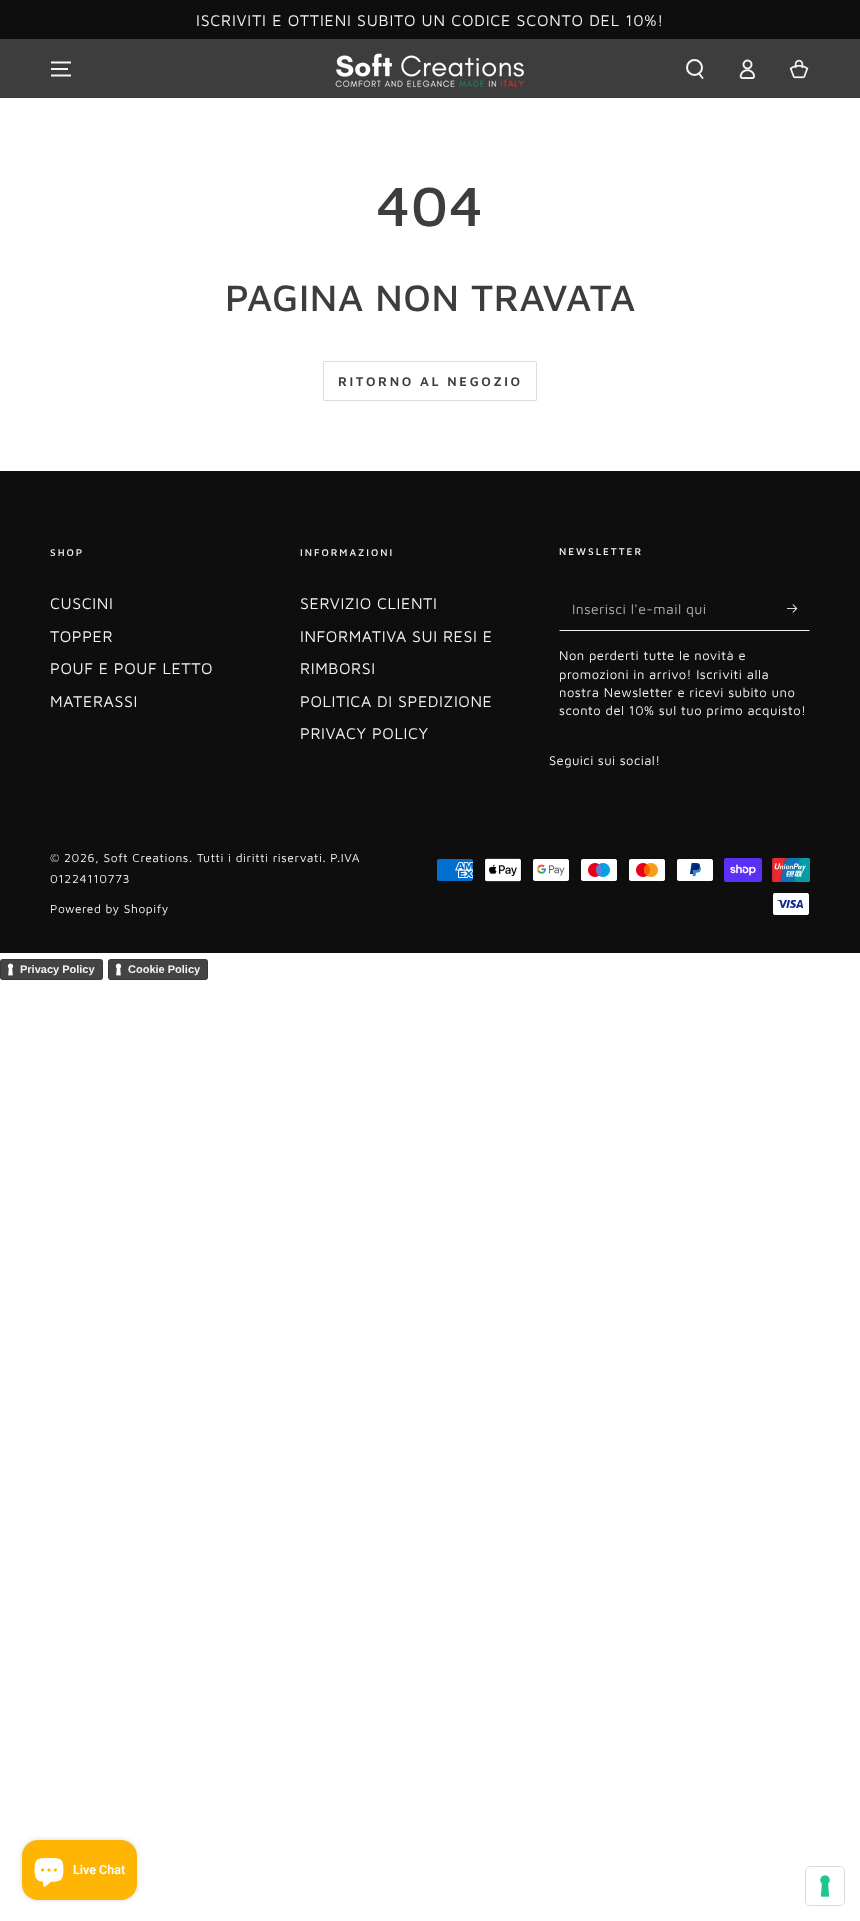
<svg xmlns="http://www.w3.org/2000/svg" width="860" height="1921">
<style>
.a{font:16px Maven Pro;letter-spacing:0.78px;fill:#f4f4f4}
.b{font:500 57px Maven Pro;letter-spacing:0.6px;fill:#3d3d3d}
.c{font:500 38px Maven Pro;letter-spacing:0.6px;fill:#3d3d3d}
.d{font:600 13px Maven Pro;letter-spacing:2.6px;fill:#3d3d3d}
.e{font:500 10px Maven Pro;letter-spacing:2px;fill:#f4f4f4}
.f{font:16px Maven Pro;letter-spacing:0.6px;fill:#f4f4f4}
.g{font:14px Maven Pro;letter-spacing:0.4px;fill:#b0b0b0}
.h{font:13px Maven Pro;letter-spacing:0.5px;fill:#f4f4f4}
.i{font:13px Maven Pro;letter-spacing:0.4px;fill:#f4f4f4}
.j{font:12px Maven Pro;letter-spacing:0.6px;fill:#f4f4f4}
.k{font:bold 11px Liberation Sans;fill:#f4f4f4}
.l{font:600 12.5px Roboto;fill:#fff}
</style>
<rect width="100%" height="100%" fill="#fff"/>
<path fill="#0e0e0e" d="M0 0h860v39H0z"/>
<path fill="#3d3d3d" d="M0 39h860v59H0z"/>
<path fill="none" stroke="#f5f5f5" stroke-width="1.9" d="M51 75.5h20m-20-6.5h17m-17-6.5h20"/>
<image href="1.png" x="335" y="53" width="189" height="35"/>
<circle fill="none" stroke="#f5f5f5" stroke-width="2" cx="694.5" cy="67.5" r="7.5"/>
<path fill="none" stroke="#f5f5f5" stroke-width="2" stroke-linecap="round" d="M699 73.5l3.5 4.5"/>
<image href="2.png" x="739" y="59" width="16" height="20"/>
<image href="3.png" x="789" y="59" width="20" height="20"/>
<path fill="none" stroke="#ddd" d="M323.5 361.5h213v39H323.5z"/>
<path fill="#0e0e0e" d="M0 471h860v482H0z"/>
<path fill="#f5f5f5" d="M810 631h-251l1-1h249z"/>
<image href="4.png" x="787" y="604" width="11" height="9"/>
<image href="5.png" x="437" y="859" width="36" height="22"/>
<image href="6.png" x="484" y="858" width="38" height="24"/>
<image href="7.png" x="533" y="859" width="36" height="22"/>
<image href="8.png" x="581" y="859" width="36" height="22"/>
<image href="9.png" x="629" y="859" width="36" height="22"/>
<image href="10.png" x="677" y="859" width="36" height="22"/>
<image href="11.png" x="724" y="858" width="38" height="24"/>
<image href="12.png" x="772" y="858" width="38" height="24"/>
<image href="13.png" x="773" y="893" width="36" height="22"/>
<rect fill="#00000026" filter="blur(0.5px)" x="1" y="961" width="101" height="19" rx="2"/>
<rect fill="#444" y="959" width="103" height="21" rx="3"/>
<image href="14.png" x="7" y="963" width="7" height="13"/>
<rect fill="none" stroke="#00000026" x="0.5" y="959.5" width="102" height="20" rx="2.5"/>
<rect fill="#00000026" filter="blur(0.5px)" x="109" y="961" width="98" height="19" rx="2"/>
<rect fill="#444" x="108" y="959" width="100" height="21" rx="3"/>
<image href="14.png" x="115" y="963" width="7" height="13"/>
<rect fill="none" stroke="#00000026" x="108.5" y="959.5" width="99" height="20" rx="2.5"/>
<rect fill="#00000026" filter="blur(2.5px)" x="22" y="1840" width="115" height="60" rx="16"/>
<rect fill="#ffb503" x="22" y="1840" width="115" height="60" rx="16"/>
<image href="15.png" x="34" y="1858" width="30" height="29"/>
<rect fill="none" stroke="#d9d9d9" x="805.5" y="1866.5" width="39" height="39" rx="4.5"/>
<rect fill="#fff" x="806" y="1867" width="38" height="38" rx="4"/>
<image href="16.png" x="820" y="1875" width="10" height="22"/>
<text class="a" x="196" y="26">ISCRIVITI E OTTIENI SUBITO UN CODICE SCONTO DEL 10%!</text>
<text class="b" x="376" y="226">404</text>
<text class="c" x="225" y="311">PAGINA NON TRAVATA</text>
<text class="d" x="338" y="386">RITORNO AL NEGOZIO</text>
<text class="e" x="50" y="556">SHOP</text>
<text class="f" x="50" y="609">CUSCINI</text>
<text class="f" x="50" y="642">TOPPER</text>
<text class="f" x="50" y="674">POUF E POUF LETTO</text>
<text class="f" x="50" y="707">MATERASSI</text>
<text class="e" x="300" y="556">INFORMAZIONI</text>
<text class="f" x="300" y="609">SERVIZIO CLIENTI</text>
<text class="f" x="300" y="642">INFORMATIVA SUI RESI E</text>
<text class="f" x="300" y="674">RIMBORSI</text>
<text class="f" x="300" y="707">POLITICA DI SPEDIZIONE</text>
<text class="f" x="300" y="739">PRIVACY POLICY</text>
<text class="e" x="559" y="555">NEWSLETTER</text>
<text class="g" x="572" y="614">Inserisci l'e-mail qui</text>
<text class="h" x="559" y="660">Non perderti tutte le novità e</text>
<text class="h" x="559" y="679">promozioni in arrivo! Iscriviti alla</text>
<text class="h" x="559" y="697">nostra Newsletter e ricevi subito uno</text>
<text class="h" x="559" y="715">sconto del 10% sul tuo primo acquisto!</text>
<text class="i" x="549" y="765">Seguici sui social!</text>
<text class="j" x="50" y="862">© 2026, Soft Creations. Tutti i diritti riservati. P.IVA</text>
<text class="j" x="50" y="883">01224110773</text>
<text class="j" x="50" y="913">Powered by Shopify</text>
<text class="k" x="20" y="973">Privacy Policy</text>
<text class="k" x="128" y="973">Cookie Policy</text>
<text class="l" x="73" y="1874">Live Chat</text>
</svg>
